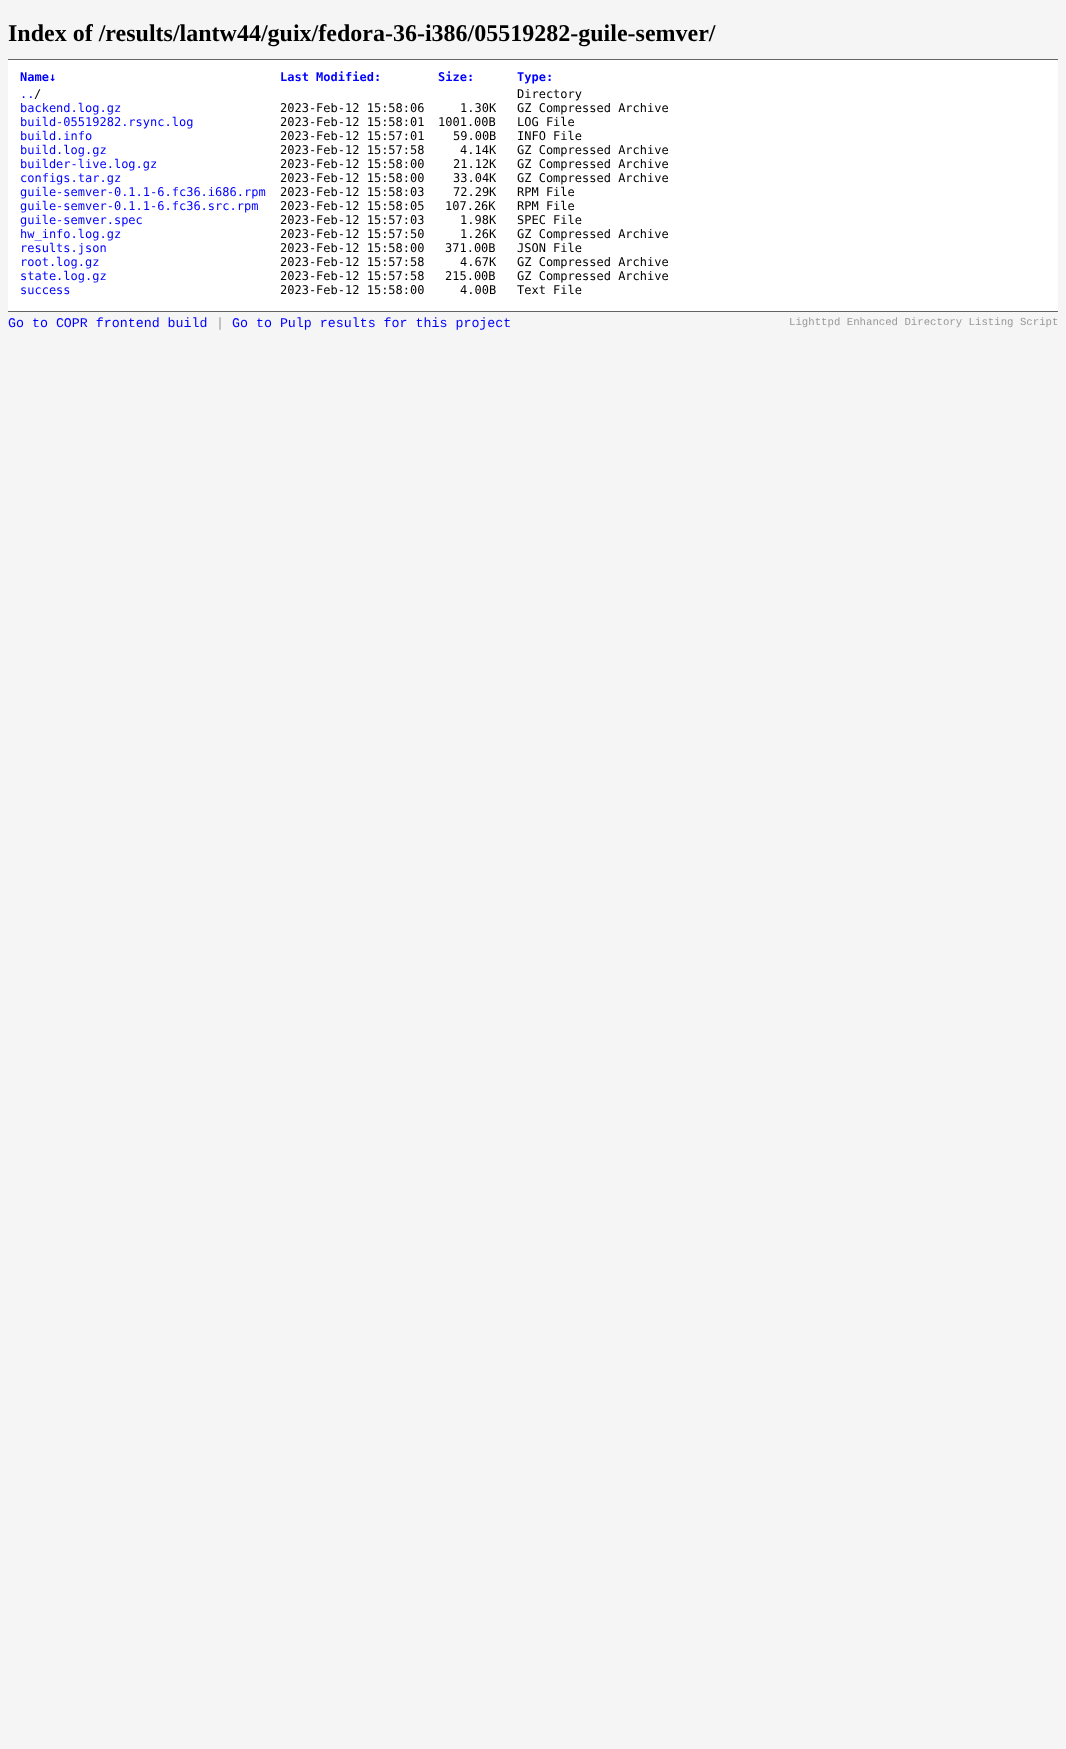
<svg xmlns="http://www.w3.org/2000/svg" width="1066" height="1749">
<style>
.a{font:bold 24px Liberation Serif;fill:#000}
.b{font:bold 12px DejaVu Sans Mono;fill:#00f}
.c{font:12px DejaVu Sans Mono;fill:#00f}
.d{font:12px DejaVu Sans Mono;fill:#000}
.e{font:13.3px Liberation Mono;fill:#00f}
.f{font:13.3px Liberation Mono;fill:#999}
.g{font:10.7px Liberation Mono;fill:#999}
</style>
<rect width="100%" height="100%" fill="#f5f5f5"/>
<path fill="#fff" d="M8 60h1050v251H8z"/>
<path fill="#646464" d="M8 59h1050v1H8z"/>
<path fill="#646464" d="M8 311h1050v1H8z"/>
<text class="a" x="8" y="41">Index of /results/lantw44/guix/fedora-36-i386/05519282-guile-semver/</text>
<text class="b" x="20" y="81">Name↓</text>
<text class="b" x="280" y="81">Last Modified:</text>
<text class="b" x="438" y="81">Size:</text>
<text class="b" x="517" y="81">Type:</text>
<text class="c" x="20" y="98">..</text>
<text class="d" x="34" y="98">/</text>
<text class="d" x="517" y="98">Directory</text>
<text class="c" x="20" y="112">backend.log.gz</text>
<text class="d" x="280" y="112">2023-Feb-12 15:58:06</text>
<text class="d" x="460" y="112">1.30K</text>
<text class="d" x="517" y="112">GZ Compressed Archive</text>
<text class="c" x="20" y="126">build-05519282.rsync.log</text>
<text class="d" x="280" y="126">2023-Feb-12 15:58:01</text>
<text class="d" x="438" y="126">1001.00B</text>
<text class="d" x="517" y="126">LOG File</text>
<text class="c" x="20" y="140">build.info</text>
<text class="d" x="280" y="140">2023-Feb-12 15:57:01</text>
<text class="d" x="453" y="140">59.00B</text>
<text class="d" x="517" y="140">INFO File</text>
<text class="c" x="20" y="154">build.log.gz</text>
<text class="d" x="280" y="154">2023-Feb-12 15:57:58</text>
<text class="d" x="460" y="154">4.14K</text>
<text class="d" x="517" y="154">GZ Compressed Archive</text>
<text class="c" x="20" y="168">builder-live.log.gz</text>
<text class="d" x="280" y="168">2023-Feb-12 15:58:00</text>
<text class="d" x="453" y="168">21.12K</text>
<text class="d" x="517" y="168">GZ Compressed Archive</text>
<text class="c" x="20" y="182">configs.tar.gz</text>
<text class="d" x="280" y="182">2023-Feb-12 15:58:00</text>
<text class="d" x="453" y="182">33.04K</text>
<text class="d" x="517" y="182">GZ Compressed Archive</text>
<text class="c" x="20" y="196">guile-semver-0.1.1-6.fc36.i686.rpm</text>
<text class="d" x="280" y="196">2023-Feb-12 15:58:03</text>
<text class="d" x="453" y="196">72.29K</text>
<text class="d" x="517" y="196">RPM File</text>
<text class="c" x="20" y="210">guile-semver-0.1.1-6.fc36.src.rpm</text>
<text class="d" x="280" y="210">2023-Feb-12 15:58:05</text>
<text class="d" x="445" y="210">107.26K</text>
<text class="d" x="517" y="210">RPM File</text>
<text class="c" x="20" y="224">guile-semver.spec</text>
<text class="d" x="280" y="224">2023-Feb-12 15:57:03</text>
<text class="d" x="460" y="224">1.98K</text>
<text class="d" x="517" y="224">SPEC File</text>
<text class="c" x="20" y="238">hw_info.log.gz</text>
<text class="d" x="280" y="238">2023-Feb-12 15:57:50</text>
<text class="d" x="460" y="238">1.26K</text>
<text class="d" x="517" y="238">GZ Compressed Archive</text>
<text class="c" x="20" y="252">results.json</text>
<text class="d" x="280" y="252">2023-Feb-12 15:58:00</text>
<text class="d" x="445" y="252">371.00B</text>
<text class="d" x="517" y="252">JSON File</text>
<text class="c" x="20" y="266">root.log.gz</text>
<text class="d" x="280" y="266">2023-Feb-12 15:57:58</text>
<text class="d" x="460" y="266">4.67K</text>
<text class="d" x="517" y="266">GZ Compressed Archive</text>
<text class="c" x="20" y="280">state.log.gz</text>
<text class="d" x="280" y="280">2023-Feb-12 15:57:58</text>
<text class="d" x="445" y="280">215.00B</text>
<text class="d" x="517" y="280">GZ Compressed Archive</text>
<text class="c" x="20" y="294">success</text>
<text class="d" x="280" y="294">2023-Feb-12 15:58:00</text>
<text class="d" x="460" y="294">4.00B</text>
<text class="d" x="517" y="294">Text File</text>
<text class="e" x="8" y="327">Go to COPR frontend build</text>
<text class="f" x="216" y="327">|</text>
<text class="e" x="232" y="327">Go to Pulp results for this project</text>
<text class="g" x="789" y="325">Lighttpd Enhanced Directory Listing Script</text>
</svg>
